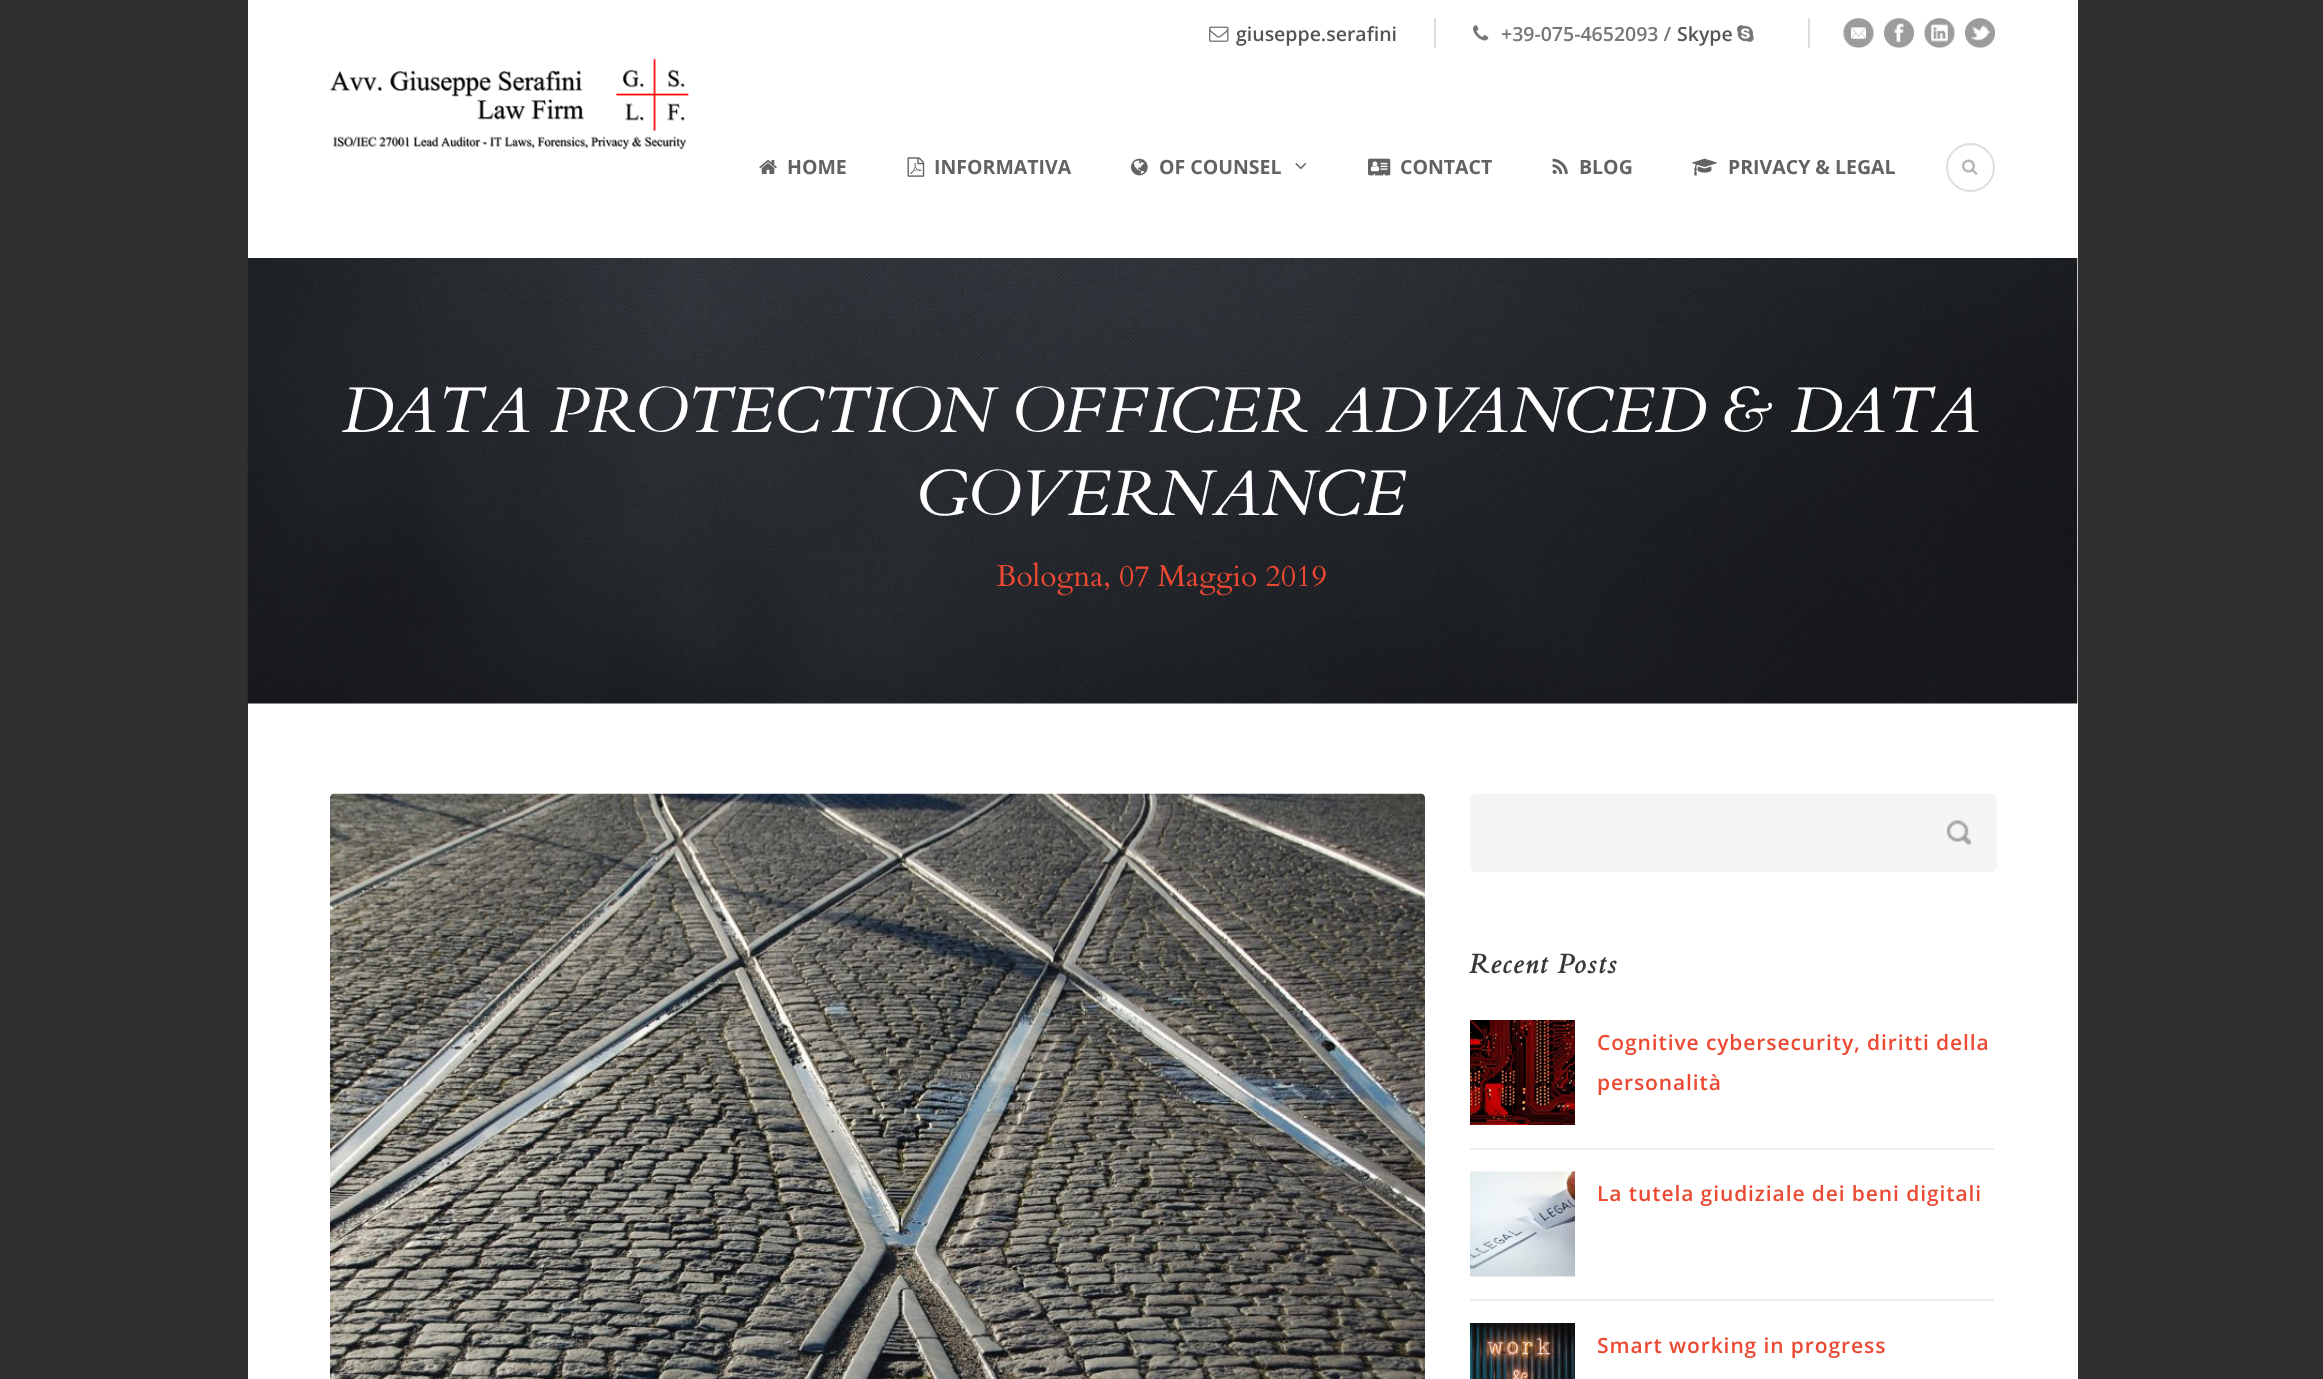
<svg xmlns="http://www.w3.org/2000/svg" width="2323" height="1379">
<style>
.a{font:600 19.5px Open Sans;fill:#555}
.b{font:600 19.5px Open Sans;fill:#777}
.c{font:bold 19.5px Open Sans;fill:#646363}
.d{font:italic 64.5px Cardo;fill:#fff}
.e{font:30px Cardo;fill:#ec4933}
.f{font:italic bold 27px Cardo;letter-spacing:1.5px;fill:#383838}
.g{font:600 21px Open Sans;letter-spacing:0.9px;fill:#ec4933}
</style>
<defs>
<clipPath id="clip1"><path d="M1598 1323h396v47H1598z"/></clipPath>
</defs>
<rect width="100%" height="100%" fill="#303030"/>
<path fill="#fff" d="M248 0h1830v1379H248z"/>
<path fill="#dedede" d="M1434 18h2v30H1434z"/>
<image href="1.png" x="1209" y="26" width="20" height="16"/>
<path fill="#dedede" d="M1808 18h2v30H1808z"/>
<image href="2.png" x="1473" y="25" width="16" height="16"/>
<image href="3.png" x="1737" y="25" width="17" height="17"/>
<image href="4.png" x="1843" y="18" width="31" height="30"/>
<image href="5.png" x="1884" y="18" width="30" height="30"/>
<image href="6.png" x="1924" y="18" width="31" height="30"/>
<image href="7.png" x="1965" y="18" width="30" height="30"/>
<image href="8.png" x="330" y="58" width="359" height="92"/>
<image href="9.png" x="759" y="160" width="18" height="14"/>
<image href="10.png" x="907" y="157" width="18" height="20"/>
<image href="11.png" x="1131" y="158" width="17" height="18"/>
<image href="12.png" x="1295" y="162" width="12" height="8"/>
<image href="13.png" x="1368" y="158" width="23" height="18"/>
<image href="14.png" x="1552" y="158" width="16" height="16"/>
<image href="15.png" x="1692" y="158" width="25" height="18"/>
<circle fill="none" stroke="#dedede" stroke-width="2" cx="1970.5" cy="167.5" r="23.5"/>
<image href="16.png" x="1962" y="159" width="16" height="16"/>
<image href="17.png" x="247" y="258" width="1831" height="446"/>
<image href="18.png" x="330" y="793" width="1095" height="586"/>
<rect fill="#f5f5f5" x="1470" y="794" width="527" height="78" rx="5"/>
<image href="19.png" x="1947" y="820" width="24" height="25"/>
<path fill="#eee" d="M1470 1148h524v2H1470z"/>
<image href="20.png" x="1470" y="1020" width="105" height="105"/>
<path fill="#eee" d="M1470 1299h524v2H1470z"/>
<image href="21.png" x="1470" y="1171" width="105" height="106"/>
<image href="22.png" x="1470" y="1323" width="105" height="56"/>
<text class="a" x="1236" y="41">giuseppe.serafini</text>
<text class="b" x="1501" y="41">+39-075-4652093 /</text>
<text class="a" x="1677" y="41">Skype</text>
<text class="c" x="787" y="174">HOME</text>
<text class="c" x="934" y="174">INFORMATIVA</text>
<text class="c" x="1159" y="174">OF COUNSEL</text>
<text class="c" x="1400" y="174">CONTACT</text>
<text class="c" x="1579" y="174">BLOG</text>
<text class="c" x="1728" y="174">PRIVACY &amp; LEGAL</text>
<text class="d" x="342" y="432">DATA PROTECTION OFFICER ADVANCED &amp; DATA</text>
<text class="d" x="917" y="515">GOVERNANCE</text>
<text class="e" x="996" y="586">Bologna, 07 Maggio 2019</text>
<text class="f" x="1469" y="973">Recent Posts</text>
<text class="g" x="1597" y="1050">Cognitive cybersecurity, diritti della</text>
<text class="g" x="1597" y="1090">personalità</text>
<text class="g" x="1597" y="1201">La tutela giudiziale dei beni digitali</text>
<g clip-path="url(#clip1)">
<text class="g" x="1597" y="1353">Smart working in progress</text>
</g>
</svg>
